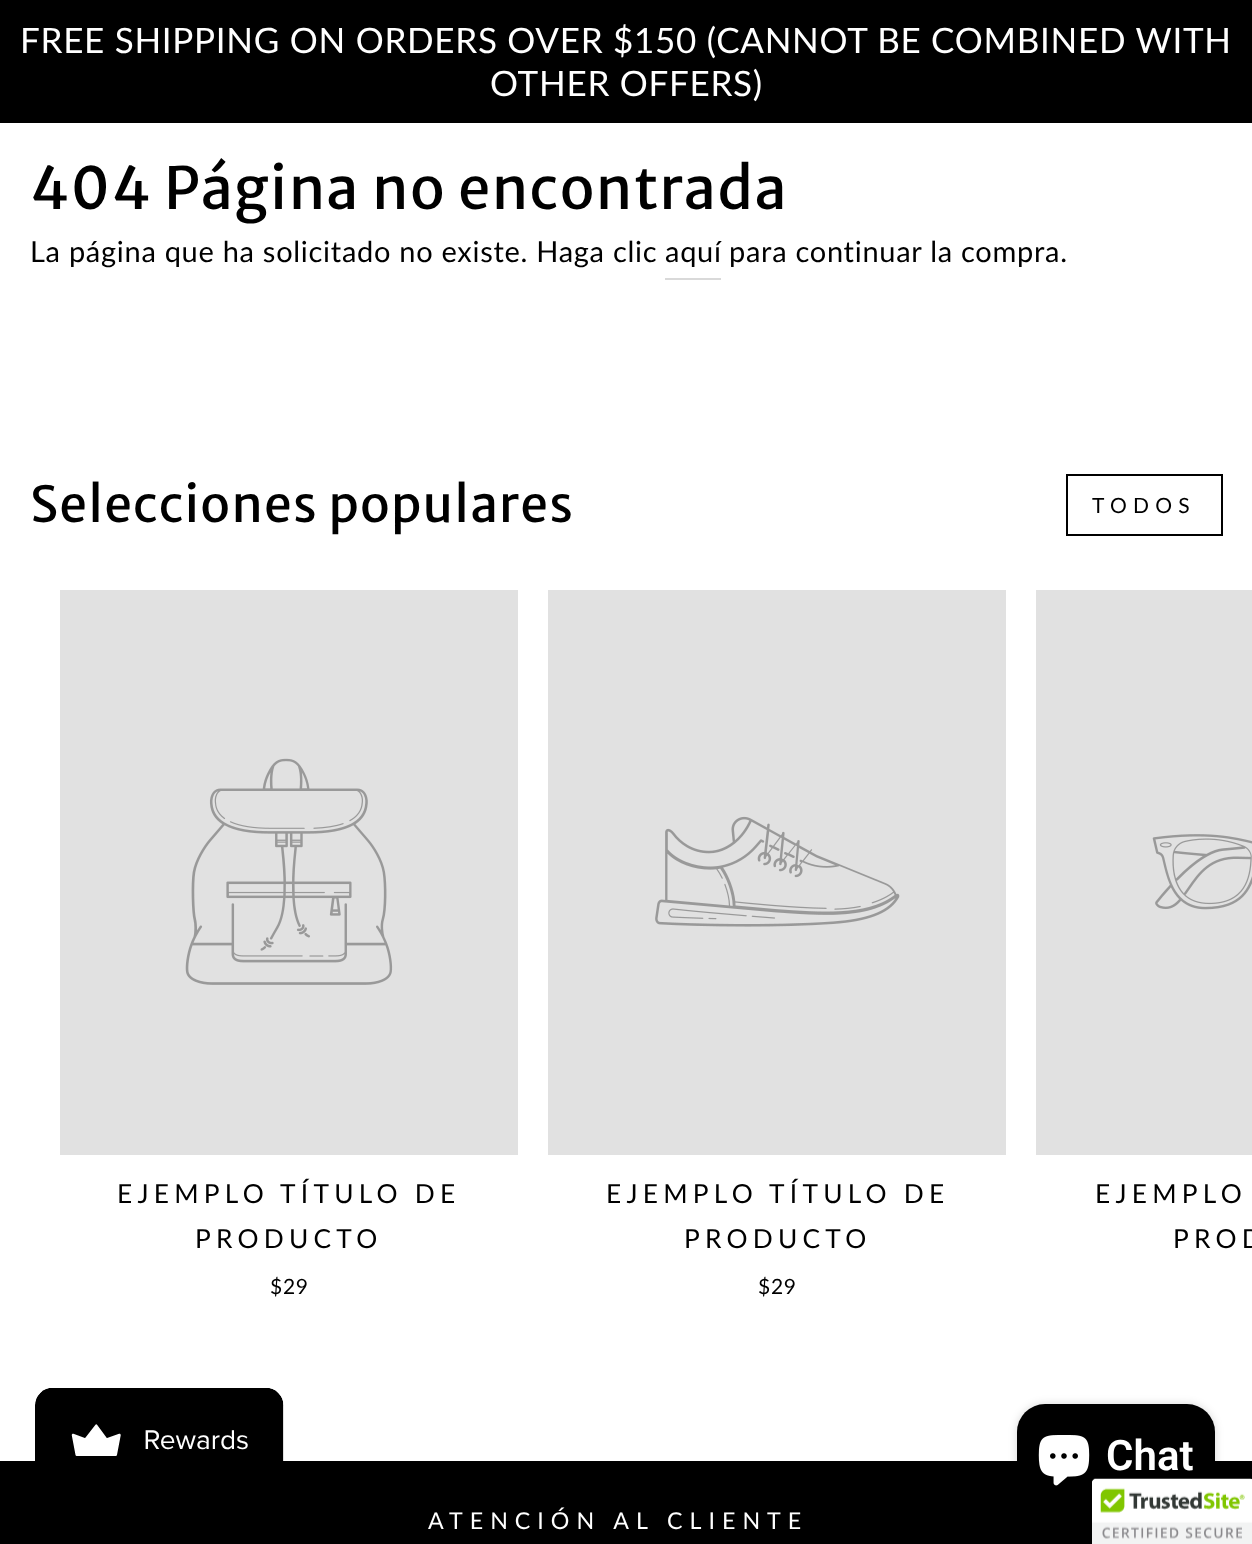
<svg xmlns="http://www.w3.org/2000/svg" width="1252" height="1544">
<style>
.a{font:35px Lato;letter-spacing:0.72px;fill:#fff}
.b{font:58px Merriweather Sans;letter-spacing:1.45px;fill:#000}
.c{font:29px Lato;letter-spacing:0.72px;fill:#000}
.d{font:49.75px Merriweather Sans;letter-spacing:1.25px;fill:#000}
.e{font:21px Lato;letter-spacing:6.25px;fill:#000}
.f{font:26.25px Lato;letter-spacing:5.25px;fill:#000}
.g{font:21px Lato;letter-spacing:0.72px;fill:#000}
.h{font:23.2px Lato;letter-spacing:7px;fill:#fff}
.i{font:600 42px Roboto;fill:#fff}
</style>
<rect width="100%" height="100%" fill="#fff"/>
<path fill="#000" d="M0 0h1252v123H0z"/>
<path fill="#d9d9d9" d="M665 278h56v2H665z"/>
<path fill="none" stroke="#000" stroke-width="2" d="M1067 475h155v60H1067z"/>
<path fill="#e1e1e1" d="M60 590h458v565H60z"/>
<image href="1.png" x="185" y="758" width="208" height="227"/>
<path fill="#e1e1e1" d="M548 590h458v565H548z"/>
<image href="2.png" x="655" y="816" width="245" height="111"/>
<path fill="#e1e1e1" d="M1036 590h216v565H1036z"/>
<image href="3.png" x="1152" y="834" width="100" height="76"/>
<path fill="#000" d="M0 1461h1252v83H0z"/>
<image href="4.png" x="35" y="1388" width="249" height="73"/>
<rect fill="#00000026" filter="blur(4.5px)" x="1017" y="1404" width="198" height="105" rx="28"/>
<rect fill="#000" x="1017" y="1404" width="198" height="105" rx="28"/>
<image href="5.png" x="1038" y="1435" width="52" height="51"/>
<path fill="#fff" d="M1096 1479h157v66h-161v-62c0-2 2-4 4-4z"/>
<image href="6.png" x="1092" y="1478" width="160" height="66"/>
<text class="a" x="20" y="53">FREE SHIPPING ON ORDERS OVER $150 (CANNOT BE COMBINED WITH</text>
<text class="a" x="490" y="96">OTHER OFFERS)</text>
<text class="b" x="30" y="209">404 Página no encontrada</text>
<text class="c" x="30" y="262">La página que ha solicitado no existe. Haga clic</text>
<text class="c" x="665" y="262">aquí</text>
<text class="c" x="729" y="262">para continuar la compra.</text>
<text class="d" x="30" y="522">Selecciones populares</text>
<text class="e" x="1092" y="513">TODOS</text>
<text class="f" x="117" y="1203">EJEMPLO TÍTULO DE</text>
<text class="f" x="195" y="1248">PRODUCTO</text>
<text class="g" x="270" y="1294">$29</text>
<text class="f" x="606" y="1203">EJEMPLO TÍTULO DE</text>
<text class="f" x="684" y="1248">PRODUCTO</text>
<text class="g" x="758" y="1294">$29</text>
<text class="f" x="1095" y="1203">EJEMPLO</text>
<text class="f" x="1173" y="1248">PROD</text>
<text class="h" x="428" y="1529">ATENCIÓN AL CLIENTE</text>
<text class="i" x="1106" y="1470">Chat</text>
</svg>
